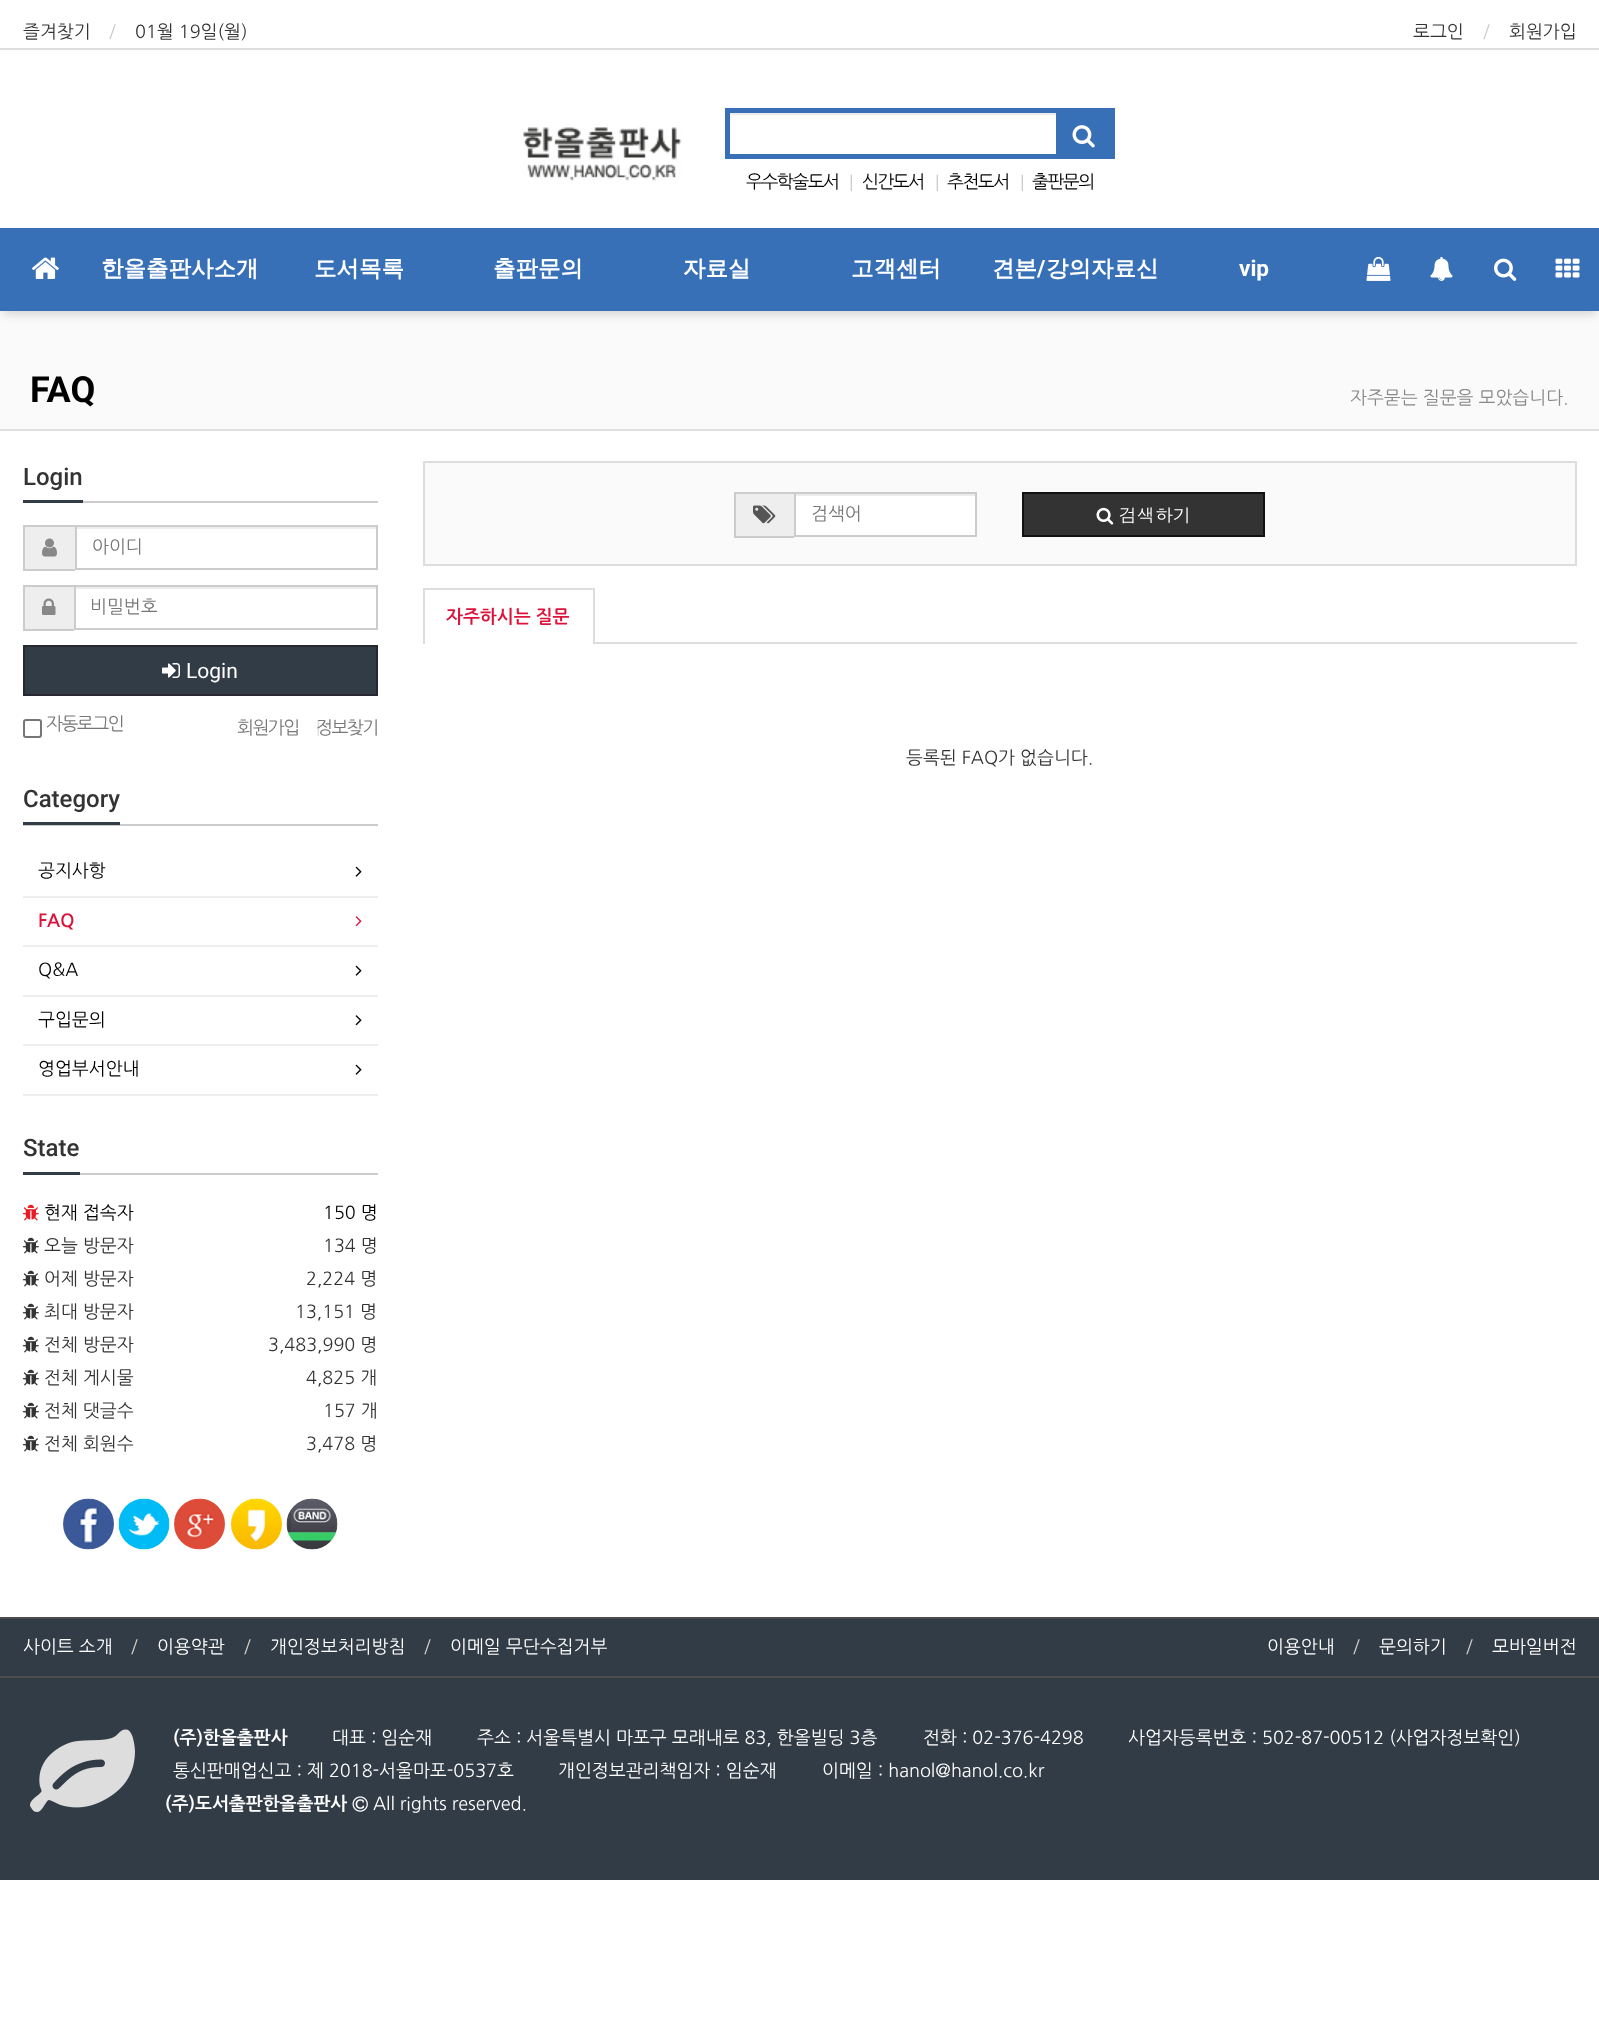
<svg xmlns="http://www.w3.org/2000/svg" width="1599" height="2037">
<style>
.a{font:18px NanumGothic;fill:#333}
.b{font:18px NanumGothic;fill:#ccc}
.c{font:18px NanumGothic;letter-spacing:-1.5px;fill:#000}
.d{font:18px NanumGothic;letter-spacing:-1.5px;fill:#ccc}
.e{font:bold 22.5px WenQuanYi Zen Hei;fill:#fff}
.f{font:bold 22.5px Roboto;fill:#fff}
.g{font:bold 36px Roboto;fill:#000}
.h{font:18px NanumGothic;fill:#888}
.i{font:500 24px Roboto;fill:#333}
.j{font:18px NanumGothic;fill:#777}
.k{font:21px Roboto;fill:#fff}
.l{font:18px NanumGothic;letter-spacing:-1.5px;fill:#777}
.m{font:18px NanumGothic;letter-spacing:-1.5px;fill:#ddd}
.n{font:18px NanumGothic;fill:#000}
.o{font:bold 18px NanumGothic;fill:#dc143c}
.p{font:18px Dotum;fill:#fff}
.q{font:18px NanumGothic;fill:#fff}
.r{font:bold 18px NanumGothic;fill:#fff}
</style>
<rect width="100%" height="100%" fill="#fff"/>
<path fill="#ddd" d="M0 48h1599v2H0z"/>
<image href="1.png" x="523" y="127" width="159" height="54"/>
<path fill="#3770b7" d="M725 108h390v51H725z"/>
<path fill="#fff" d="M730 115h326v39H730z"/>
<path fill="#ececec" d="M729 113h327v2H729z"/>
<path fill="none" stroke="#3770b7" stroke-width="2" d="M729 112h328v43H729z"/>
<image href="2.png" x="1072" y="125" width="23" height="23"/>
<path fill="#fafafa" d="M0 311h1599v118H0z"/>
<path fill="#19191926" filter="blur(4px)" d="M3 239h1593v76H3z"/>
<path fill="#3770b7" d="M0 228h1599v83H0z"/>
<image href="3.png" x="32" y="257" width="27" height="22"/>
<image href="4.png" x="1366" y="256" width="25" height="25"/>
<image href="5.png" x="1430" y="256" width="23" height="25"/>
<image href="6.png" x="1494" y="258" width="23" height="23"/>
<image href="7.png" x="1555" y="258" width="25" height="20"/>
<path fill="#dfdfdf" d="M0 429h1599v2H0z"/>
<path fill="#ccc" d="M83 501h295v2H83z"/>
<path fill="#323c46" d="M23 500h60v3H23z"/>
<path fill="#eee" d="M25 527h50v42H25z"/>
<path fill="#ccc" d="M23 525h52v2H23z"/>
<path fill="#ccc" d="M23 569h52v2H23z"/>
<path fill="#ccc" d="M23 525h2v45H23z"/>
<image href="8.png" x="42" y="538" width="15" height="19"/>
<path fill="#ececec" d="M77 527h300v2H77z"/>
<path fill="none" stroke="#ccc" stroke-width="2" d="M76 526h301v43H76z"/>
<path fill="#eee" d="M25 587h49v42H25z"/>
<path fill="#ccc" d="M23 585h51v2H23z"/>
<path fill="#ccc" d="M23 629h51v2H23z"/>
<path fill="#ccc" d="M23 585h2v45H23z"/>
<image href="9.png" x="42" y="598" width="14" height="17"/>
<path fill="#ececec" d="M75 587h302v2H75z"/>
<path fill="none" stroke="#ccc" stroke-width="2" d="M75 586h302v43H75z"/>
<path fill="#323c46" stroke="#282832" stroke-width="2" d="M24 646h353v49H24z"/>
<image href="10.png" x="162" y="663" width="18" height="15"/>
<rect fill="none" stroke="#767676" stroke-width="2" x="24" y="720" width="17" height="17" rx="2"/>
<path fill="#ccc" d="M23 824h355v2H23z"/>
<path fill="#323c46" d="M23 822h97v3H23z"/>
<path fill="#eee" d="M23 896h355v2H23z"/>
<image href="11.png" x="355" y="866" width="7" height="11"/>
<path fill="#eee" d="M23 945h355v2H23z"/>
<image href="12.png" x="355" y="916" width="7" height="11"/>
<path fill="#eee" d="M23 995h355v2H23z"/>
<image href="11.png" x="355" y="965" width="7" height="11"/>
<path fill="#eee" d="M23 1044h355v2H23z"/>
<image href="13.png" x="355" y="1015" width="7" height="11"/>
<path fill="#eee" d="M23 1094h355v2H23z"/>
<image href="11.png" x="355" y="1064" width="7" height="11"/>
<path fill="#ccc" d="M80 1173h298v2H80z"/>
<path fill="#323c46" d="M23 1172h57v3H23z"/>
<image href="14.png" x="22" y="1204" width="17" height="17"/>
<image href="15.png" x="22" y="1237" width="17" height="17"/>
<image href="15.png" x="22" y="1270" width="17" height="17"/>
<image href="15.png" x="22" y="1303" width="17" height="17"/>
<image href="15.png" x="22" y="1336" width="17" height="17"/>
<image href="15.png" x="22" y="1369" width="17" height="17"/>
<image href="15.png" x="22" y="1402" width="17" height="17"/>
<image href="15.png" x="22" y="1435" width="17" height="17"/>
<image href="16.png" x="63" y="1498" width="51" height="52"/>
<image href="17.png" x="118" y="1498" width="52" height="52"/>
<image href="18.png" x="174" y="1498" width="51" height="52"/>
<image href="19.png" x="231" y="1498" width="51" height="52"/>
<image href="20.png" x="286" y="1498" width="52" height="52"/>
<path fill="#fafafa" stroke="#ddd" stroke-width="2" d="M424 462h1152v103H424z"/>
<path fill="#eee" d="M736 494h58v42H736z"/>
<path fill="#ccc" d="M734 492h60v2H734z"/>
<path fill="#ccc" d="M734 536h60v2H734z"/>
<path fill="#ccc" d="M734 492h2v45H734z"/>
<image href="21.png" x="753" y="505" width="23" height="19"/>
<path fill="#fff" d="M796 496h179v39H796z"/>
<path fill="#ececec" d="M795 494h180v2H795z"/>
<path fill="none" stroke="#ccc" stroke-width="2" d="M795 493h181v43H795z"/>
<path fill="#333" stroke="#111" stroke-width="2" d="M1023 493h241v43H1023z"/>
<image href="22.png" x="1096" y="507" width="18" height="18"/>
<path fill="#ddd" d="M595 642h982v2H595z"/>
<path fill="#ddd" d="M423 588h171v2H423z"/>
<path fill="#ddd" d="M593 588h2v56H593z"/>
<path fill="#ddd" d="M423 588h2v56H423z"/>
<path fill="#323c46" d="M0 1619h1599v261H0z"/>
<path fill="#4c4c4c" d="M0 1617h1599v2H0z"/>
<path fill="#4c4c4c" d="M0 1676h1599v2H0z"/>
<image href="23.png" x="30" y="1729" width="105" height="83"/>
<image href="24.png" x="352" y="1796" width="16" height="16"/>
<text class="a" x="23" y="38">즐겨찾기</text>
<text class="b" x="109" y="38">/</text>
<text class="a" x="135" y="38">01월 19일(월)</text>
<text class="a" x="1413" y="38">로그인</text>
<text class="b" x="1483" y="38">/</text>
<text class="a" x="1509" y="38">회원가입</text>
<text class="c" x="746" y="188">우수학술도서</text>
<text class="d" x="849" y="189">|</text>
<text class="c" x="862" y="188">신간도서</text>
<text class="d" x="935" y="189">|</text>
<text class="c" x="947" y="188">추천도서</text>
<text class="d" x="1020" y="189">|</text>
<text class="c" x="1032" y="188">출판문의</text>
<text class="e" x="101" y="276">한올출판사소개</text>
<text class="e" x="314" y="276">도서목록</text>
<text class="e" x="493" y="276">출판문의</text>
<text class="e" x="683" y="276">자료실</text>
<text class="e" x="851" y="276">고객센터</text>
<text class="e" x="992" y="276">견본</text>
<text class="f" x="1037" y="276">/</text>
<text class="e" x="1046" y="276">강의자료신</text>
<text class="f" x="1239" y="276">vip</text>
<text class="g" x="30" y="402">FAQ</text>
<text class="h" x="1350" y="404">자주묻는 질문을 모았습니다.</text>
<text class="i" x="23" y="485">Login</text>
<text class="j" x="92" y="553">아이디</text>
<text class="j" x="90" y="613">비밀번호</text>
<text class="k" x="186" y="678">Login</text>
<text class="l" x="46" y="730">자동로그인</text>
<text class="l" x="237" y="734">회원가입</text>
<text class="m" x="316" y="734">|</text>
<text class="l" x="316" y="734">정보찾기</text>
<text class="i" x="23" y="807">Category</text>
<text class="n" x="38" y="877">공지사항</text>
<text class="o" x="38" y="927">FAQ</text>
<text class="n" x="38" y="976">Q&amp;A</text>
<text class="n" x="38" y="1026">구입문의</text>
<text class="n" x="38" y="1075">영업부서안내</text>
<text class="i" x="23" y="1156">State</text>
<text class="n" x="44" y="1219">현재 접속자</text>
<text class="n" x="323" y="1219">150 명</text>
<text class="a" x="44" y="1252">오늘 방문자</text>
<text class="a" x="323" y="1252">134 명</text>
<text class="a" x="44" y="1285">어제 방문자</text>
<text class="a" x="306" y="1285">2,224 명</text>
<text class="a" x="44" y="1318">최대 방문자</text>
<text class="a" x="295" y="1318">13,151 명</text>
<text class="a" x="44" y="1351">전체 방문자</text>
<text class="a" x="268" y="1351">3,483,990 명</text>
<text class="a" x="44" y="1384">전체 게시물</text>
<text class="a" x="306" y="1384">4,825 개</text>
<text class="a" x="44" y="1417">전체 댓글수</text>
<text class="a" x="323" y="1417">157 개</text>
<text class="a" x="44" y="1450">전체 회원수</text>
<text class="a" x="306" y="1450">3,478 명</text>
<text class="j" x="811" y="520">검색어</text>
<text class="p" x="1119" y="522">검색하기</text>
<text class="o" x="446" y="623">자주하시는 질문</text>
<text class="a" x="906" y="764">등록된 FAQ가 없습니다.</text>
<text class="q" x="23" y="1653">사이트 소개</text>
<text class="b" x="131" y="1653">/</text>
<text class="q" x="157" y="1653">이용약관</text>
<text class="b" x="244" y="1653">/</text>
<text class="q" x="270" y="1653">개인정보처리방침</text>
<text class="b" x="424" y="1653">/</text>
<text class="q" x="450" y="1653">이메일 무단수집거부</text>
<text class="q" x="1267" y="1653">이용안내</text>
<text class="b" x="1353" y="1653">/</text>
<text class="q" x="1379" y="1653">문의하기</text>
<text class="b" x="1466" y="1653">/</text>
<text class="q" x="1492" y="1653">모바일버전</text>
<text class="r" x="173" y="1744">(주)한올출판사</text>
<text class="q" x="332" y="1744">대표 : 임순재</text>
<text class="q" x="477" y="1744">주소 : 서울특별시 마포구 모래내로 83, 한올빌딩 3층</text>
<text class="q" x="923" y="1744">전화 : 02-376-4298</text>
<text class="q" x="1128" y="1744">사업자등록번호 : 502-87-00512 (사업자정보확인)</text>
<text class="q" x="173" y="1777">통신판매업신고 : 제 2018-서울마포-0537호</text>
<text class="q" x="558" y="1777">개인정보관리책임자 : 임순재</text>
<text class="q" x="822" y="1777">이메일 : hanol@hanol.co.kr</text>
<text class="r" x="165" y="1810">(주)도서출판한올출판사</text>
<text class="q" x="373" y="1810">All rights reserved.</text>
</svg>
